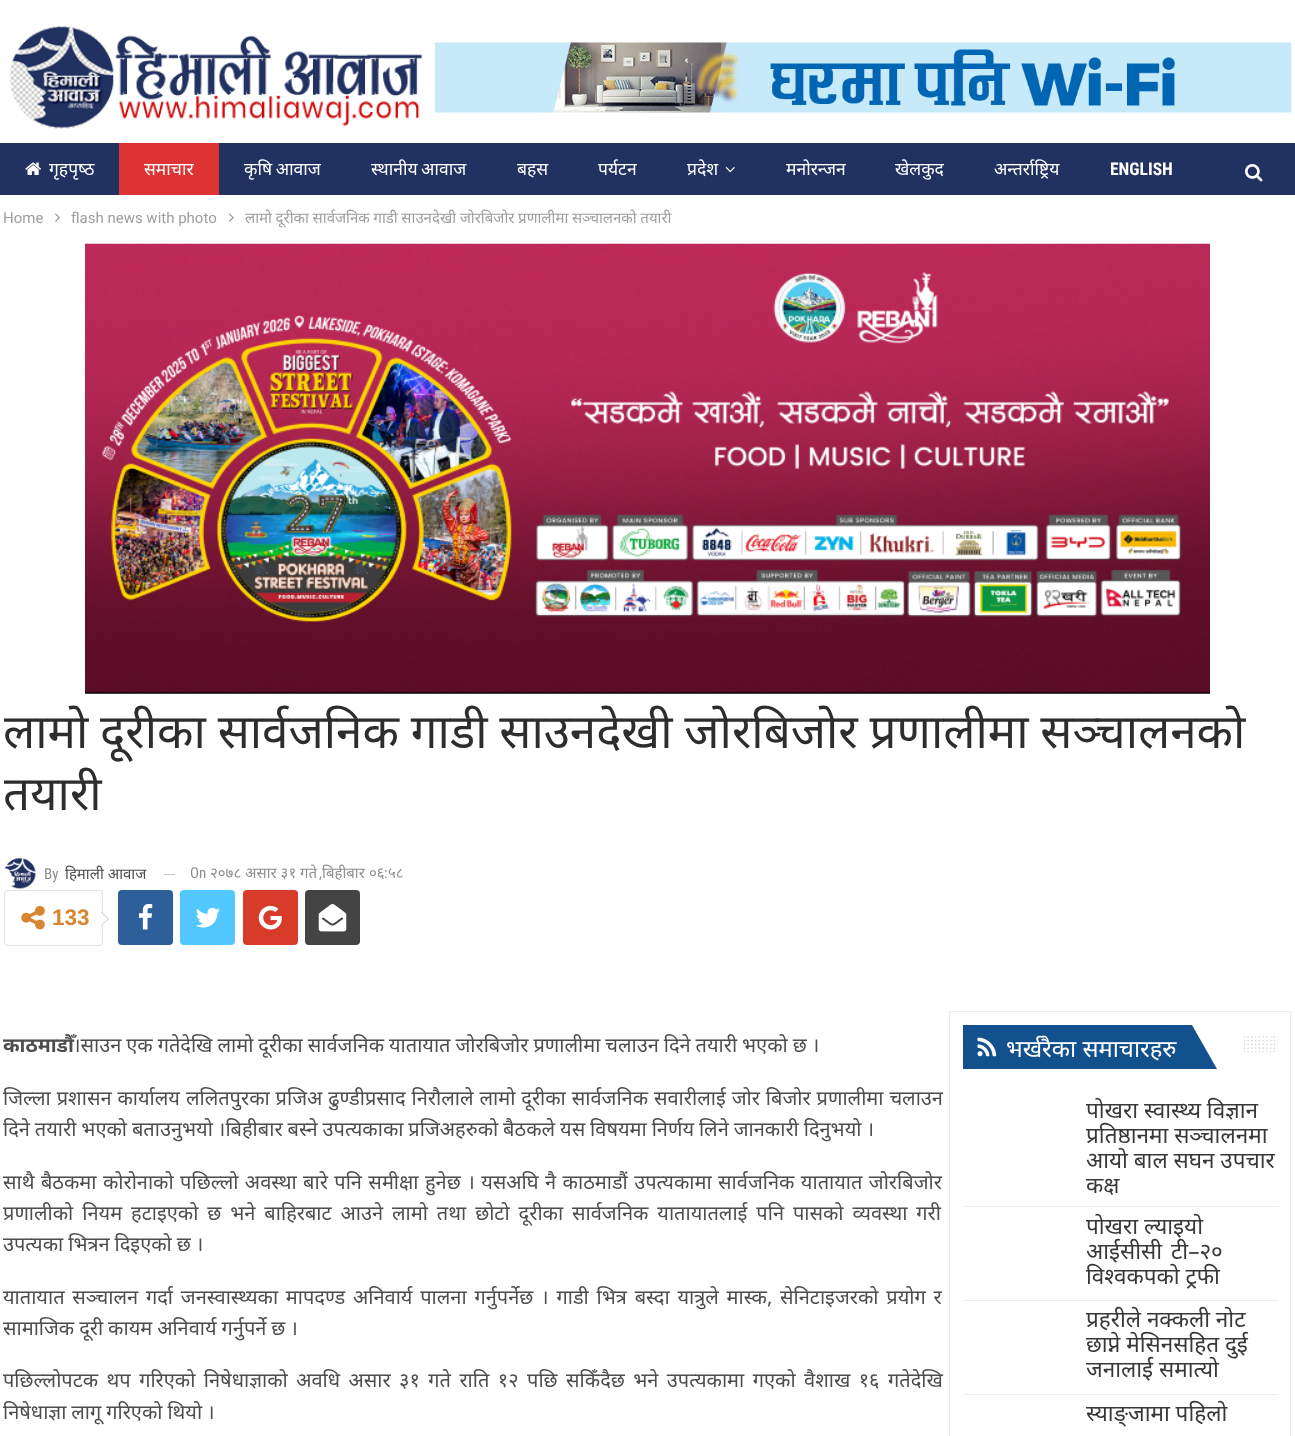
<svg xmlns="http://www.w3.org/2000/svg" width="1295" height="1436">
<style>
.a{font:17.5px Noto Sans;fill:#fff}
.b{font:bold 17.5px Roboto Condensed;fill:#fff}
.c{font:15px Roboto;fill:#9e9e9e}
.d{font:15px Noto Sans;fill:#9e9e9e}
.e{font:47.5px Noto Sans;fill:#2d2d2d}
.f{font:15px Roboto Condensed;fill:#8f8f8f}
.g{font:15px Noto Sans;fill:#4d4d4d}
.h{font:15px Noto Sans;fill:#8f8f8f}
.i{font:bold 22.5px Liberation Sans;fill:#d88531}
.j{font:bold 20px Noto Sans;fill:#4d4d4d}
.k{font:20px Noto Sans;fill:#4d4d4d}
.l{font:23.75px Noto Sans;fill:#fff}
.m{font:22.5px Noto Sans;fill:#383838}
</style>
<defs>
<clipPath id="clip1"><path d="M4 693h1289v280H4z"/></clipPath>
</defs>
<rect width="100%" height="100%" fill="#fff"/>
<image href="1.png" x="10" y="26" width="413" height="103"/>
<image href="2.png" x="435" y="42" width="857" height="71"/>
<path fill="#213261" d="M0 143h1295v52H0z"/>
<image href="3.png" x="25" y="162" width="16" height="13"/>
<path fill="#d33" d="M119 143h100v52H119z"/>
<image href="4.png" x="725" y="167" width="10" height="6"/>
<image href="5.png" x="1245" y="164" width="18" height="18"/>
<image href="6.png" x="55" y="213" width="5" height="9"/>
<image href="7.png" x="228" y="213" width="6" height="9"/>
<image href="8.png" x="85" y="243" width="1125" height="451"/>
<image href="9.png" x="4" y="857" width="32" height="32"/>
<path fill="#c4c4c4" d="M164 874h11v1H164z"/>
<rect fill="none" stroke="#e2e2e2" x="4.5" y="890.5" width="98" height="55" rx="3.5"/>
<image href="10.png" x="21" y="905" width="24" height="25"/>
<path fill="#d7d7d7" d="M101 926v-15l8 8z"/>
<path fill="#fff" d="M101 925v-12.5l6.5 6.5z"/>
<rect fill="#2d5f9a" x="118" y="890" width="55" height="55" rx="4"/>
<image href="11.png" x="138" y="903" width="15" height="27"/>
<rect fill="#53c7ff" x="180" y="890" width="55" height="55" rx="4"/>
<image href="12.png" x="195" y="907" width="25" height="21"/>
<rect fill="#d93b2b" x="243" y="890" width="55" height="55" rx="4"/>
<image href="13.png" x="258" y="905" width="24" height="25"/>
<rect fill="#444" x="305" y="890" width="55" height="55" rx="4"/>
<image href="14.png" x="318" y="904" width="29" height="28"/>
<path fill="none" stroke="#ededed" d="M949.5 1011.5h341v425H949.5z"/>
<image href="16.png" x="962" y="1036" width="316" height="17"/>
<path fill="#13518e" d="M963 1025h222v44H963z"/>
<image href="15.png" x="977" y="1037" width="20" height="20"/>
<path fill="#fff" d="M1191 1036h53v17H1191z"/>
<path fill="#13518e" d="M1161 1025h31l25 44h-32z"/>
<path fill="#ededed" d="M963 1206h315v1H963z"/>
<path fill="#ededed" d="M963 1300h315v1H963z"/>
<path fill="#ededed" d="M963 1394h315v1H963z"/>
<text class="a" x="49" y="175">गृहपृष्‍ठ</text>
<text class="a" x="144" y="175">समाचार</text>
<text class="a" x="244" y="175" word-spacing="-1">कृषि आवाज</text>
<text class="a" x="371" y="175" word-spacing="-1">स्थानीय आवाज</text>
<text class="a" x="517" y="175">बहस</text>
<text class="a" x="598" y="175">पर्यटन</text>
<text class="a" x="687" y="175">प्रदेश</text>
<text class="a" x="786" y="175">मनोरन्जन</text>
<text class="a" x="895" y="175">खेलकुद</text>
<text class="a" x="994" y="175">अन्तर्राष्ट्रिय</text>
<text class="b" x="1110" y="175">ENGLISH</text>
<text class="c" x="3" y="223">Home</text>
<text class="c" x="71" y="223">flash news with photo</text>
<text class="d" x="245" y="223" word-spacing="-0.25">लामो दूरीका सार्वजनिक गाडी साउनदेखी जोरबिजोर प्रणालीमा सञ्चालनको तयारी</text>
<g clip-path="url(#clip1)">
<text class="e" x="3" y="748" word-spacing="-0.5">लामो दूरीका सार्वजनिक गाडी साउनदेखी जोरबिजोर प्रणालीमा सञ्चालनको</text>
<text class="e" x="3" y="810">तयारी</text>
</g>
<text class="f" x="44" y="879">By</text>
<text class="g" x="65" y="879">हिमाली आवाज</text>
<text class="f" x="190" y="878">On</text>
<text class="h" x="210" y="878">२०७८ असार ३१ गते</text>
<text class="h" x="322" y="878">बिहीबार</text>
<text class="h" x="369" y="878">०६</text>
<text class="f" x="384" y="878">:</text>
<text class="h" x="388" y="878">५८</text>
<text class="f" x="319" y="878">,</text>
<text class="i" x="52" y="925">133</text>
<text class="j" x="3" y="1052">काठमाडौँ</text>
<text class="k" x="73" y="1052" word-spacing="-0.25">।साउन एक गतेदेखि लामो दूरीका सार्वजनिक यातायात जोरबिजोर प्रणालीमा चलाउन दिने तयारी भएको छ ।</text>
<text class="k" x="3" y="1105" word-spacing="0.75">जिल्ला प्रशासन कार्यालय ललितपुरका प्रजिअ ढुण्डीप्रसाद निरौलाले लामो दूरीका सार्वजनिक सवारीलाई जोर बिजोर प्रणालीमा चलाउन</text>
<text class="k" x="3" y="1136" word-spacing="-0.25">दिने तयारी भएको बताउनुभयो ।बिहीबार बस्ने उपत्यकाका प्रजिअहरुको बैठकले यस विषयमा निर्णय लिने जानकारी दिनुभयो ।</text>
<text class="k" x="3" y="1189" word-spacing="1.25">साथै बैठकमा कोरोनाको पछिल्लो अवस्था बारे पनि समीक्षा हुनेछ । यसअघि नै काठमाडौं उपत्यकामा सार्वजनिक यातायात जोरबिजोर</text>
<text class="k" x="3" y="1220" word-spacing="3.75">प्रणालीको नियम हटाइएको छ भने बाहिरबाट आउने लामो तथा छोटो दूरीका सार्वजनिक यातायातलाई पनि पासको व्यवस्था गरी</text>
<text class="k" x="3" y="1251" word-spacing="-0.25">उपत्यका भित्रन दिइएको छ ।</text>
<text class="k" x="3" y="1304" word-spacing="2.6">यातायात सञ्चालन गर्दा जनस्वास्थ्यका मापदण्ड अनिवार्य पालना गर्नुपर्नेछ । गाडी भित्र बस्दा यात्रुले मास्क, सेनिटाइजरको प्रयोग र</text>
<text class="k" x="3" y="1335" word-spacing="-0.25">सामाजिक दूरी कायम अनिवार्य गर्नुपर्ने छ ।</text>
<text class="k" x="3" y="1387" word-spacing="3.25">पछिल्लोपटक थप गरिएको निषेधाज्ञाको अवधि असार ३१ गते राति १२ पछि सकिँदैछ भने उपत्यकामा गएको वैशाख १६ गतेदेखि</text>
<text class="k" x="3" y="1419" word-spacing="-0.25">निषेधाज्ञा लागू गरिएको थियो ।</text>
<text class="l" x="1006" y="1057">भर्खरैका समाचारहरु</text>
<text class="m" x="1086" y="1118">पोखरा स्वास्थ्य विज्ञान</text>
<text class="m" x="1086" y="1143">प्रतिष्ठानमा सञ्चालनमा</text>
<text class="m" x="1086" y="1168">आयो बाल सघन उपचार</text>
<text class="m" x="1086" y="1193">कक्ष</text>
<text class="m" x="1086" y="1234">पोखरा ल्याइयो</text>
<text class="m" x="1086" y="1259" word-spacing="3">आईसीसी टी–२०</text>
<text class="m" x="1086" y="1284">विश्वकपको ट्रफी</text>
<text class="m" x="1086" y="1327">प्रहरीले नक्कली नोट</text>
<text class="m" x="1086" y="1352">छाप्ने मेसिनसहित दुई</text>
<text class="m" x="1086" y="1377">जनालाई समात्यो</text>
<text class="m" x="1086" y="1421">स्याङ्जामा पहिलो</text>
</svg>
